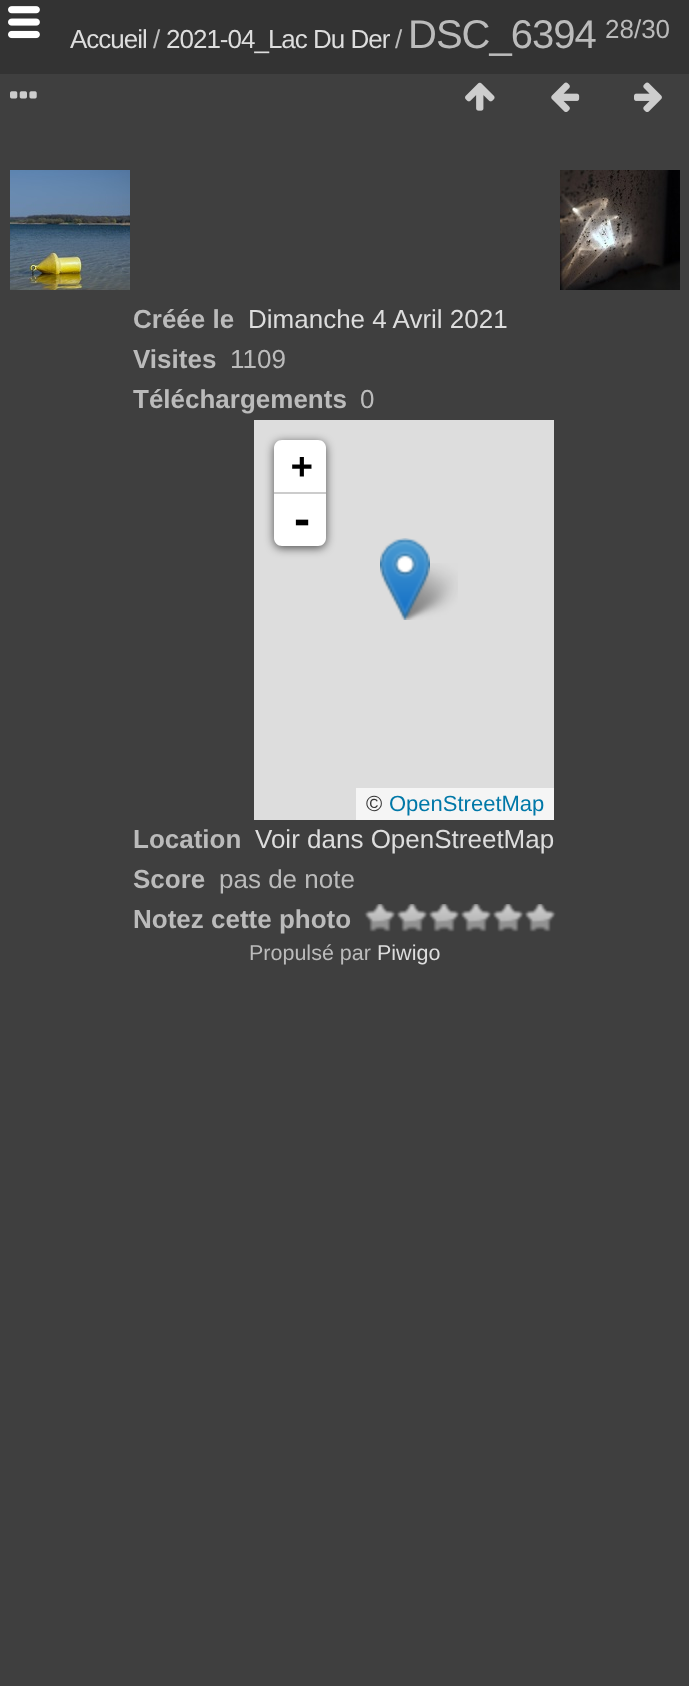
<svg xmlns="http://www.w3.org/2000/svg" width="689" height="1686">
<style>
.a{font:26px Liberation Sans;letter-spacing:-1px;fill:#ddd}
.b{font:26px Liberation Sans;letter-spacing:-1px;fill:#bbb}
.c{font:40px Liberation Sans;letter-spacing:-1px;fill:#bbb}
.d{font:26px Liberation Sans;fill:#bbb}
.e{font:bold 26px Liberation Sans;fill:#bbb}
.f{font:26px Liberation Sans;fill:#ddd}
.g{font:bold 36px DejaVu Sans Mono;fill:#000}
.h{font:bold 40px DejaVu Sans Mono;fill:#000}
.i{font:22px Liberation Sans;fill:#333}
.j{font:22px Liberation Sans;fill:#0078a8}
.k{font:21.5px Liberation Sans;fill:#bbb}
.l{font:21.5px Liberation Sans;fill:#ddd}
</style>
<rect width="100%" height="100%" fill="#3f3f3f"/>
<path fill="#333" d="M0 0h689v74H0z"/>
<image href="1.png" x="8" y="6" width="32" height="33"/>
<image href="2.png" x="10" y="91" width="27" height="8"/>
<image href="3.png" x="465" y="82" width="30" height="29"/>
<image href="4.png" x="551" y="82" width="29" height="30"/>
<image href="5.png" x="634" y="82" width="28" height="30"/>
<image href="6.png" x="10" y="170" width="120" height="120"/>
<image href="7.png" x="560" y="170" width="120" height="120"/>
<path fill="#ddd" d="M254 420h300v400H254z"/>
<rect fill="#000000a6" filter="blur(5px)" x="274" y="442" width="52" height="106" rx="8"/>
<path fill="#fff" d="M282 440h36c4.5 0 8 3.5 8 8v46h-52v-46c0-4.5 3.5-8 8-8z"/>
<path fill="#ccc" d="M274 492h52v2H274z"/>
<path fill="#fff" d="M274 494h52v44c0 4.5-3.5 8-8 8h-36c-4.5 0-8-3.5-8-8z"/>
<path fill="#f5f5f5" d="M356 788h198v32H356z"/>
<image href="9.png" x="398" y="563" width="60" height="57"/>
<image href="8.png" x="380" y="538" width="50" height="82"/>
<image href="10.png" x="364" y="904" width="32" height="28"/>
<image href="10.png" x="396" y="904" width="32" height="28"/>
<image href="10.png" x="428" y="904" width="32" height="28"/>
<image href="10.png" x="460" y="904" width="32" height="28"/>
<image href="10.png" x="492" y="904" width="32" height="28"/>
<image href="10.png" x="524" y="904" width="32" height="28"/>
<text class="a" x="70" y="48">Accueil</text>
<text class="b" x="153" y="48">/</text>
<text class="a" x="166" y="48">2021-04_Lac Du Der</text>
<text class="b" x="395" y="48">/</text>
<text class="c" x="408" y="48">DSC_6394</text>
<text class="d" x="605" y="38">28/30</text>
<text class="e" x="133" y="328">Créée le</text>
<text class="f" x="248" y="328">Dimanche 4 Avril 2021</text>
<text class="e" x="133" y="368">Visites</text>
<text class="d" x="230" y="368">1109</text>
<text class="e" x="133" y="408">Téléchargements</text>
<text class="d" x="360" y="408">0</text>
<text class="e" x="133" y="848">Location</text>
<text class="g" x="291" y="478">+</text>
<text class="h" x="290" y="534">-</text>
<text class="i" x="366" y="811">©</text>
<text class="j" x="389" y="811">OpenStreetMap</text>
<text class="f" x="255" y="848">Voir dans OpenStreetMap</text>
<text class="e" x="133" y="888">Score</text>
<text class="d" x="219" y="888">pas de note</text>
<text class="e" x="133" y="928">Notez cette photo</text>
<text class="k" x="249" y="960">Propulsé par</text>
<text class="l" x="377" y="960">Piwigo</text>
</svg>
